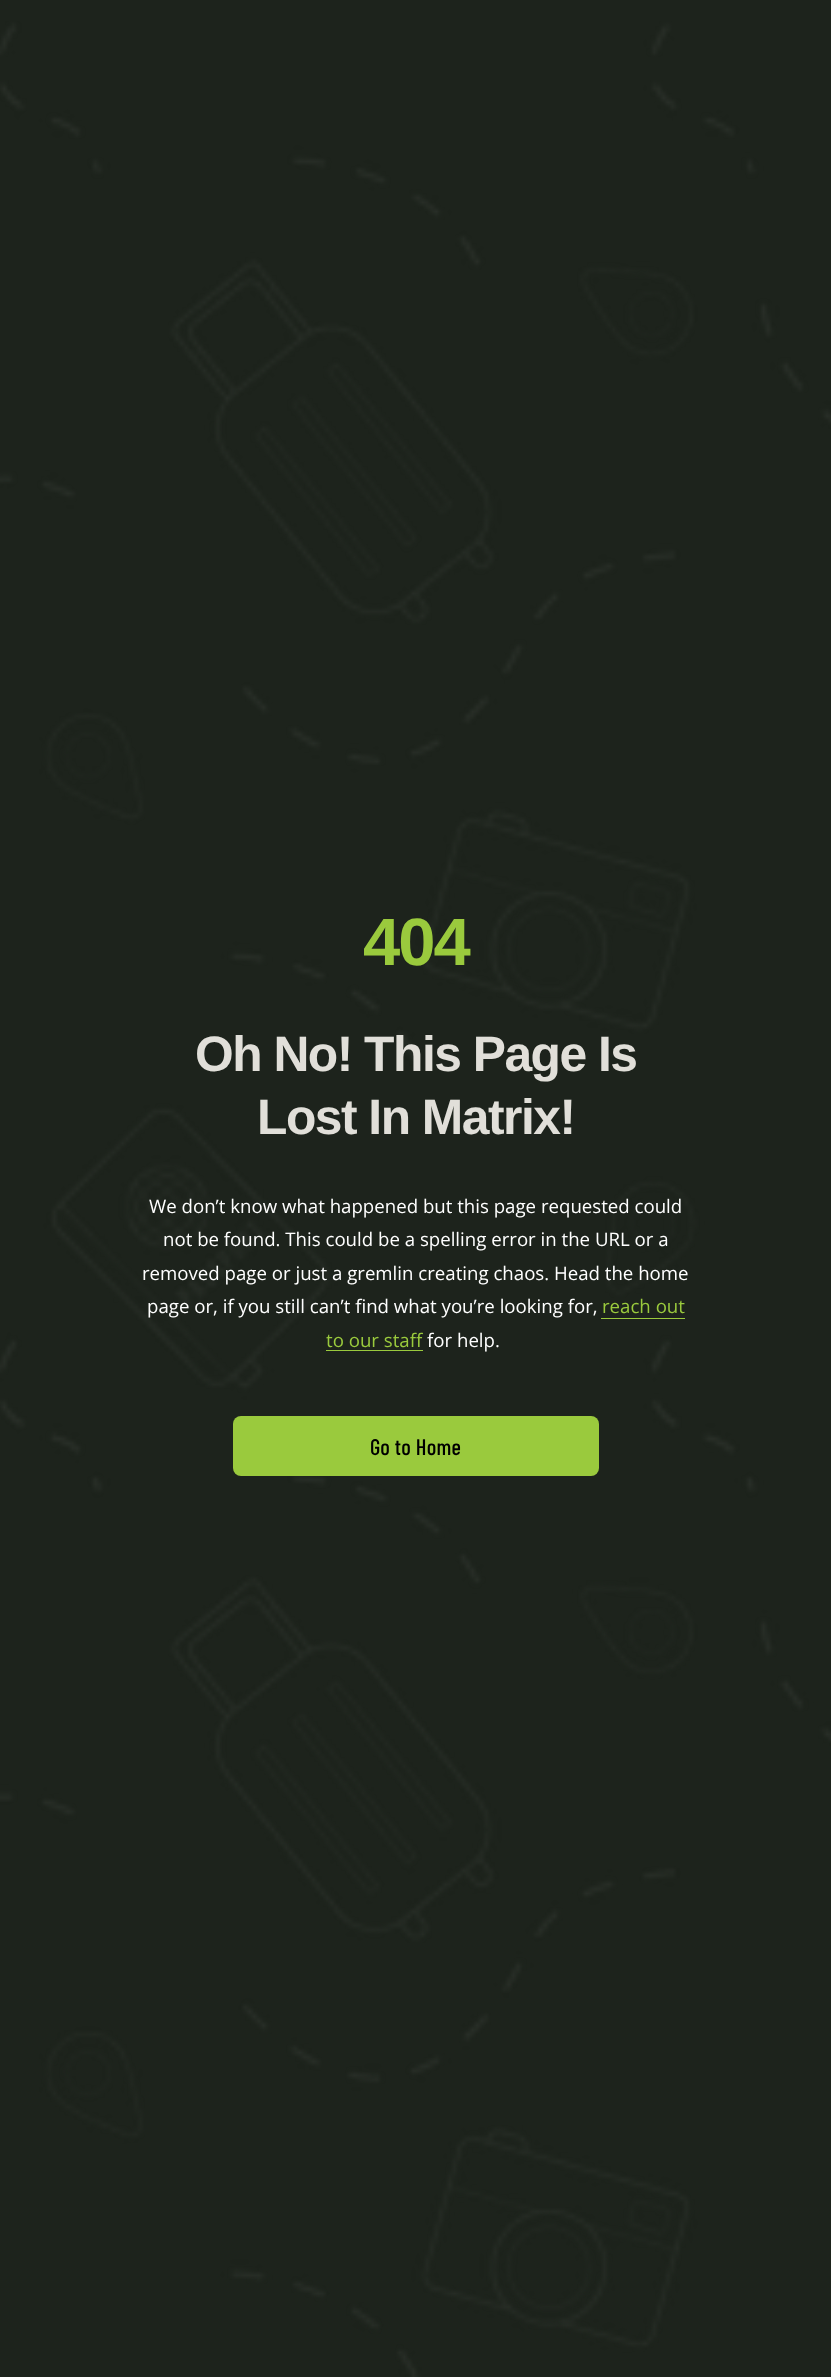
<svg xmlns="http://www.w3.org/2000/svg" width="831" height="2377">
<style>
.a{font:bold 67px Liberation Sans;letter-spacing:-2px;fill:#9aca3d}
.b{font:bold 49.75px Liberation Sans;letter-spacing:-1.5px;fill:#e1dfd9}
.c{font:18.65px Open Sans;fill:#fff}
.d{font:18.65px Open Sans;fill:#9aca3d}
.e{font:500 22.5px Barlow Condensed;letter-spacing:0.25px;fill:#000}
</style>
<rect width="100%" height="100%" fill="#1d231c"/>
<image href="1.png" x="0" y="21" width="831" height="2356"/>
<path fill="#9aca3d" d="M601 1318h84v1H601z"/>
<path fill="#9aca3d" d="M326 1350h97v1H326z"/>
<rect fill="#9aca3d" x="233" y="1416" width="366" height="60" rx="8"/>
<text class="a" x="363" y="965">404</text>
<text class="b" x="195" y="1071">Oh No! This Page Is</text>
<text class="b" x="257" y="1134">Lost In Matrix!</text>
<text class="c" x="149" y="1213">We don’t know what happened but this page requested could</text>
<text class="c" x="163" y="1246">not be found. This could be a spelling error in the URL or a</text>
<text class="c" x="142" y="1280">removed page or just a gremlin creating chaos. Head the home</text>
<text class="c" x="147" y="1313">page or, if you still can’t find what you’re looking for,</text>
<text class="d" x="602" y="1313">reach out</text>
<text class="d" x="326" y="1347">to our staff</text>
<text class="c" x="427" y="1347">for help.</text>
<text class="e" x="370" y="1455">Go to Home</text>
</svg>
